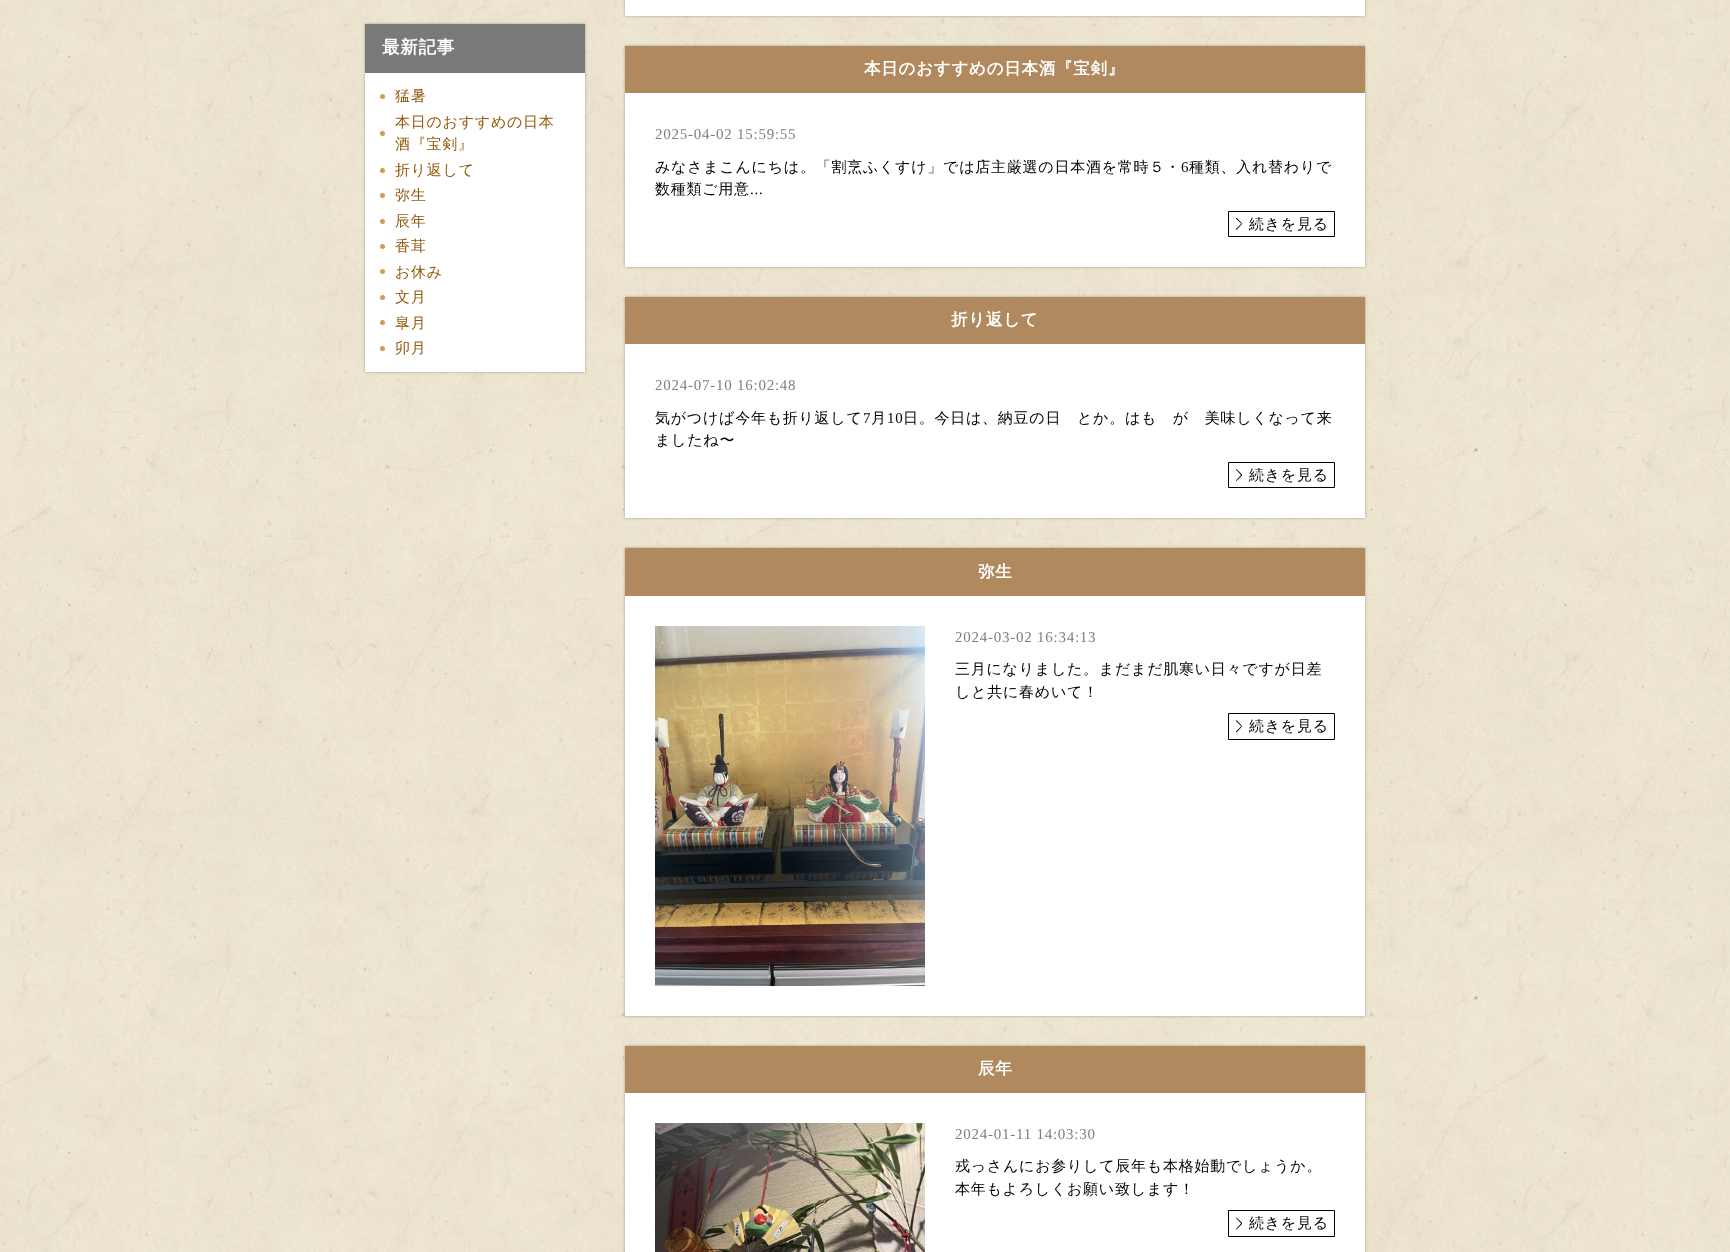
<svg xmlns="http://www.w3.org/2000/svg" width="1730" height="1252">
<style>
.a{font:bold 17.5px WenQuanYi Zen Hei;letter-spacing:0.75px;fill:#fff}
.b{font:500 15px WenQuanYi Zen Hei;letter-spacing:0.75px;fill:#92580d}
.c{font:bold 16.5px WenQuanYi Zen Hei;letter-spacing:0.75px;fill:#fff}
.d{font:15px Liberation Serif;letter-spacing:0.75px;fill:#7e7e7e}
.e{font:500 15px WenQuanYi Zen Hei;letter-spacing:0.75px;fill:#010101}
.f{font:15px Liberation Serif;letter-spacing:0.75px;fill:#010101}
</style>
<rect width="100%" height="100%" fill="#fff"/>
<image href="1.png" x="0" y="0" width="1730" height="1252"/>
<path fill="#0000004d" filter="blur(1.5px)" d="M365 24h220v348H365z"/>
<path fill="#fff" d="M365 73h220v299H365z"/>
<path fill="#797979" d="M365 24h220v49H365z"/>
<circle fill="#cc9e5a" cx="382.5" cy="96.5" r="2.5"/>
<circle fill="#cc9e5a" cx="382.5" cy="133.5" r="2.5"/>
<circle fill="#cc9e5a" cx="382.5" cy="170.5" r="2.5"/>
<circle fill="#cc9e5a" cx="382.5" cy="195.5" r="2.5"/>
<circle fill="#cc9e5a" cx="382.5" cy="221.5" r="2.5"/>
<circle fill="#cc9e5a" cx="382.5" cy="246.5" r="2.5"/>
<circle fill="#cc9e5a" cx="382.5" cy="271.5" r="2.5"/>
<circle fill="#cc9e5a" cx="382.5" cy="297.5" r="2.5"/>
<circle fill="#cc9e5a" cx="382.5" cy="322.5" r="2.5"/>
<circle fill="#cc9e5a" cx="382.5" cy="348.5" r="2.5"/>
<path fill="#0000004d" filter="blur(1.5px)" d="M625 -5h740v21H625z"/>
<path fill="#fff" d="M625 0h740v16H625z"/>
<path fill="#0000004d" filter="blur(1.5px)" d="M625 46h740v221H625z"/>
<path fill="#fff" d="M625 93h740v174H625z"/>
<path fill="#b0895f" d="M625 46h740v47H625z"/>
<path fill="none" stroke="#010101" d="M1228.5 211.5h106v25H1228.5z"/>
<path fill="#010101" d="M1236.5 217.5l5.5 6l-.5 .5l-5.5-5.5z"/>
<path fill="#010101" d="M1236 229l5.5-5.5l.5 .5l-5.5 6z"/>
<path fill="#0000004d" filter="blur(1.5px)" d="M625 297h740v221H625z"/>
<path fill="#fff" d="M625 344h740v174H625z"/>
<path fill="#b0895f" d="M625 297h740v47H625z"/>
<path fill="none" stroke="#010101" d="M1228.5 462.5h106v25H1228.5z"/>
<path fill="#010101" d="M1236.5 469l5.5 5.5l-.5 1l-5.5-6z"/>
<path fill="#010101" d="M1236 480.5l5.5-6l.5 1l-5.5 5.5z"/>
<path fill="#0000004d" filter="blur(1.5px)" d="M625 548h740v468H625z"/>
<path fill="#fff" d="M625 596h740v420H625z"/>
<path fill="#b0895f" d="M625 548h740v48H625z"/>
<image href="2.png" x="655" y="626" width="270" height="360"/>
<path fill="none" stroke="#010101" d="M1228.5 713.5h106v26H1228.5z"/>
<path fill="#010101" d="M1236.5 720l5.5 6l-.5 .5l-5.5-5.5z"/>
<path fill="#010101" d="M1236 731.5l5.5-5.5l.5 .5l-5.5 6z"/>
<path fill="#0000004d" filter="blur(1.5px)" d="M625 1046h740v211H625z"/>
<path fill="#fff" d="M625 1093h740v159H625z"/>
<path fill="#b0895f" d="M625 1046h740v47H625z"/>
<image href="3.png" x="655" y="1123" width="270" height="129"/>
<path fill="none" stroke="#010101" d="M1228.5 1210.5h106v26H1228.5z"/>
<path fill="#010101" d="M1236.5 1217.5l5.5 5.5l-.5 1l-5.5-6z"/>
<path fill="#010101" d="M1236 1229l5.5-6l.5 1l-5.5 5.5z"/>
<text class="a" x="382" y="53">最新記事</text>
<text class="b" x="395" y="101">猛暑</text>
<text class="b" x="395" y="127">本日のおすすめの日本</text>
<text class="b" x="395" y="149">酒『宝剣』</text>
<text class="b" x="395" y="175">折り返して</text>
<text class="b" x="395" y="200">弥生</text>
<text class="b" x="395" y="226">辰年</text>
<text class="b" x="395" y="251">香茸</text>
<text class="b" x="395" y="277">お休み</text>
<text class="b" x="395" y="302">文月</text>
<text class="b" x="395" y="328">皐月</text>
<text class="b" x="395" y="353">卯月</text>
<text class="c" x="864" y="74">本日のおすすめの日本酒『宝剣』</text>
<text class="d" x="655" y="139">2025-04-02 15:59:55</text>
<text class="e" x="655" y="172">みなさまこんにちは。「割烹ふくすけ」では店主厳選の日本酒を常時５・</text>
<text class="f" x="1181" y="172">6</text>
<text class="e" x="1189" y="172">種類、入れ替わりで</text>
<text class="e" x="655" y="194">数種類ご用意</text>
<text class="f" x="750" y="194">...</text>
<text class="e" x="1249" y="229">続きを見る</text>
<text class="c" x="951" y="325">折り返して</text>
<text class="d" x="655" y="390">2024-07-10 16:02:48</text>
<text class="e" x="655" y="423">気がつけば今年も折り返して</text>
<text class="f" x="863" y="423">7</text>
<text class="e" x="871" y="423">月</text>
<text class="f" x="887" y="423">10</text>
<text class="e" x="903" y="423">日。今日は、納豆の日　とか。はも　が　美味しくなって来</text>
<text class="e" x="655" y="445">ましたね〜</text>
<text class="e" x="1249" y="480">続きを見る</text>
<text class="c" x="978" y="577">弥生</text>
<text class="d" x="955" y="642">2024-03-02 16:34:13</text>
<text class="e" x="955" y="674">三月になりました。まだまだ肌寒い日々ですが日差</text>
<text class="e" x="955" y="697">しと共に春めいて！</text>
<text class="e" x="1249" y="731">続きを見る</text>
<text class="c" x="978" y="1074">辰年</text>
<text class="d" x="955" y="1139">2024-01-11 14:03:30</text>
<text class="e" x="955" y="1171">戎っさんにお参りして辰年も本格始動でしょうか。</text>
<text class="e" x="955" y="1194">本年もよろしくお願い致します！</text>
<text class="e" x="1249" y="1228">続きを見る</text>
</svg>
